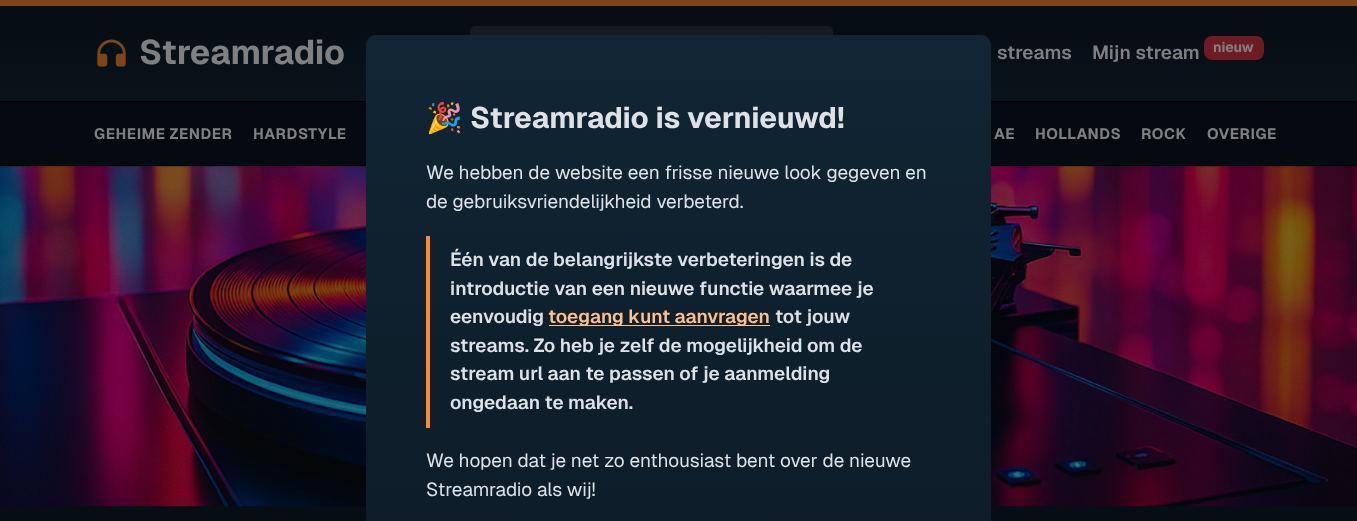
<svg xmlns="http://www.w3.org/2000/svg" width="1357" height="521">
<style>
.a{font:bold 34px Geist;fill:#808080}
.b{font:600 19px Geist;fill:#808080}
.c{font:bold 14px Geist;fill:#808080}
.d{font:bold 15px Geist;letter-spacing:0.6px;fill:#808080}
.e{font:bold 29.5px Noto Color Emoji;fill:#dee2e6}
.f{font:bold 29.5px Geist;fill:#dee2e6}
.g{font:19px Geist;fill:#dee2e6}
.h{font:600 19px Geist;fill:#dee2e6}
.i{font:600 19px Geist;fill:#fec18e}
</style>
<defs>
<linearGradient id="g1" gradientUnits="userSpaceOnUse" x1="679" y1="101" x2="679" y2="6.2"><stop offset="0" stop-color="#09131a"/><stop offset="1" stop-color="#060d13"/></linearGradient>
<linearGradient id="g2" gradientUnits="userSpaceOnUse" x1="679" y1="35" x2="679" y2="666"><stop offset="0" stop-color="#112534"/><stop offset="1" stop-color="#0c1a25"/></linearGradient>
</defs>
<rect width="100%" height="100%" fill="#060d13"/>
<path fill="url(#g1)" d="M0 40h1357v61H0z"/>
<path fill="#804516" d="M0 0h1357v6H0z"/>
<image href="1.png" x="97" y="39" width="29" height="28"/>
<rect fill="#8080801f" x="470" y="26" width="363" height="55" rx="5"/>
<rect fill="#6e1b23" x="1204" y="36" width="60" height="24" rx="8"/>
<path fill="#040a0f" d="M0 102h1357v63H0z"/>
<path fill="#000" d="M0 101h1357v1H0z"/>
<path fill="#000" d="M0 165h1357v1H0z"/>
<image href="2.png" x="0" y="166" width="1357" height="341"/>
<path fill="url(#g2)" d="M376 35h605c5.5 0 10 4.5 10 10v476h-625v-476c0-5.5 4.5-10 10-10z"/>
<path fill="#ff8a2b" d="M426 236h4v192H426z"/>
<path fill="#fec18e" d="M549 325h221v1H549z"/>
<text class="a" x="139" y="64">Streamradio</text>
<text class="b" x="997" y="59">streams</text>
<text class="b" x="1092" y="59">Mijn stream</text>
<text class="c" x="1213" y="52">nieuw</text>
<text class="d" x="94" y="139">GEHEIME ZENDER</text>
<text class="d" x="253" y="139">HARDSTYLE</text>
<text class="d" x="994" y="139">AE</text>
<text class="d" x="1035" y="139">HOLLANDS</text>
<text class="d" x="1141" y="139">ROCK</text>
<text class="d" x="1207" y="139">OVERIGE</text>
<text class="e" x="426" y="128">🎉</text>
<text class="f" x="470" y="128">Streamradio is vernieuwd!</text>
<text class="g" x="426" y="179">We hebben de website een frisse nieuwe look gegeven en</text>
<text class="g" x="426" y="208">de gebruiksvriendelijkheid verbeterd.</text>
<text class="h" x="450" y="266">Één van de belangrijkste verbeteringen is de</text>
<text class="h" x="450" y="295">introductie van een nieuwe functie waarmee je</text>
<text class="h" x="450" y="323">eenvoudig</text>
<text class="i" x="548" y="323">toegang kunt aanvragen</text>
<text class="h" x="775" y="323">tot jouw</text>
<text class="h" x="450" y="352">streams. Zo heb je zelf de mogelijkheid om de</text>
<text class="h" x="450" y="380">stream url aan te passen of je aanmelding</text>
<text class="h" x="450" y="409">ongedaan te maken.</text>
<text class="g" x="426" y="467">We hopen dat je net zo enthousiast bent over de nieuwe</text>
<text class="g" x="426" y="496">Streamradio als wij!</text>
</svg>
